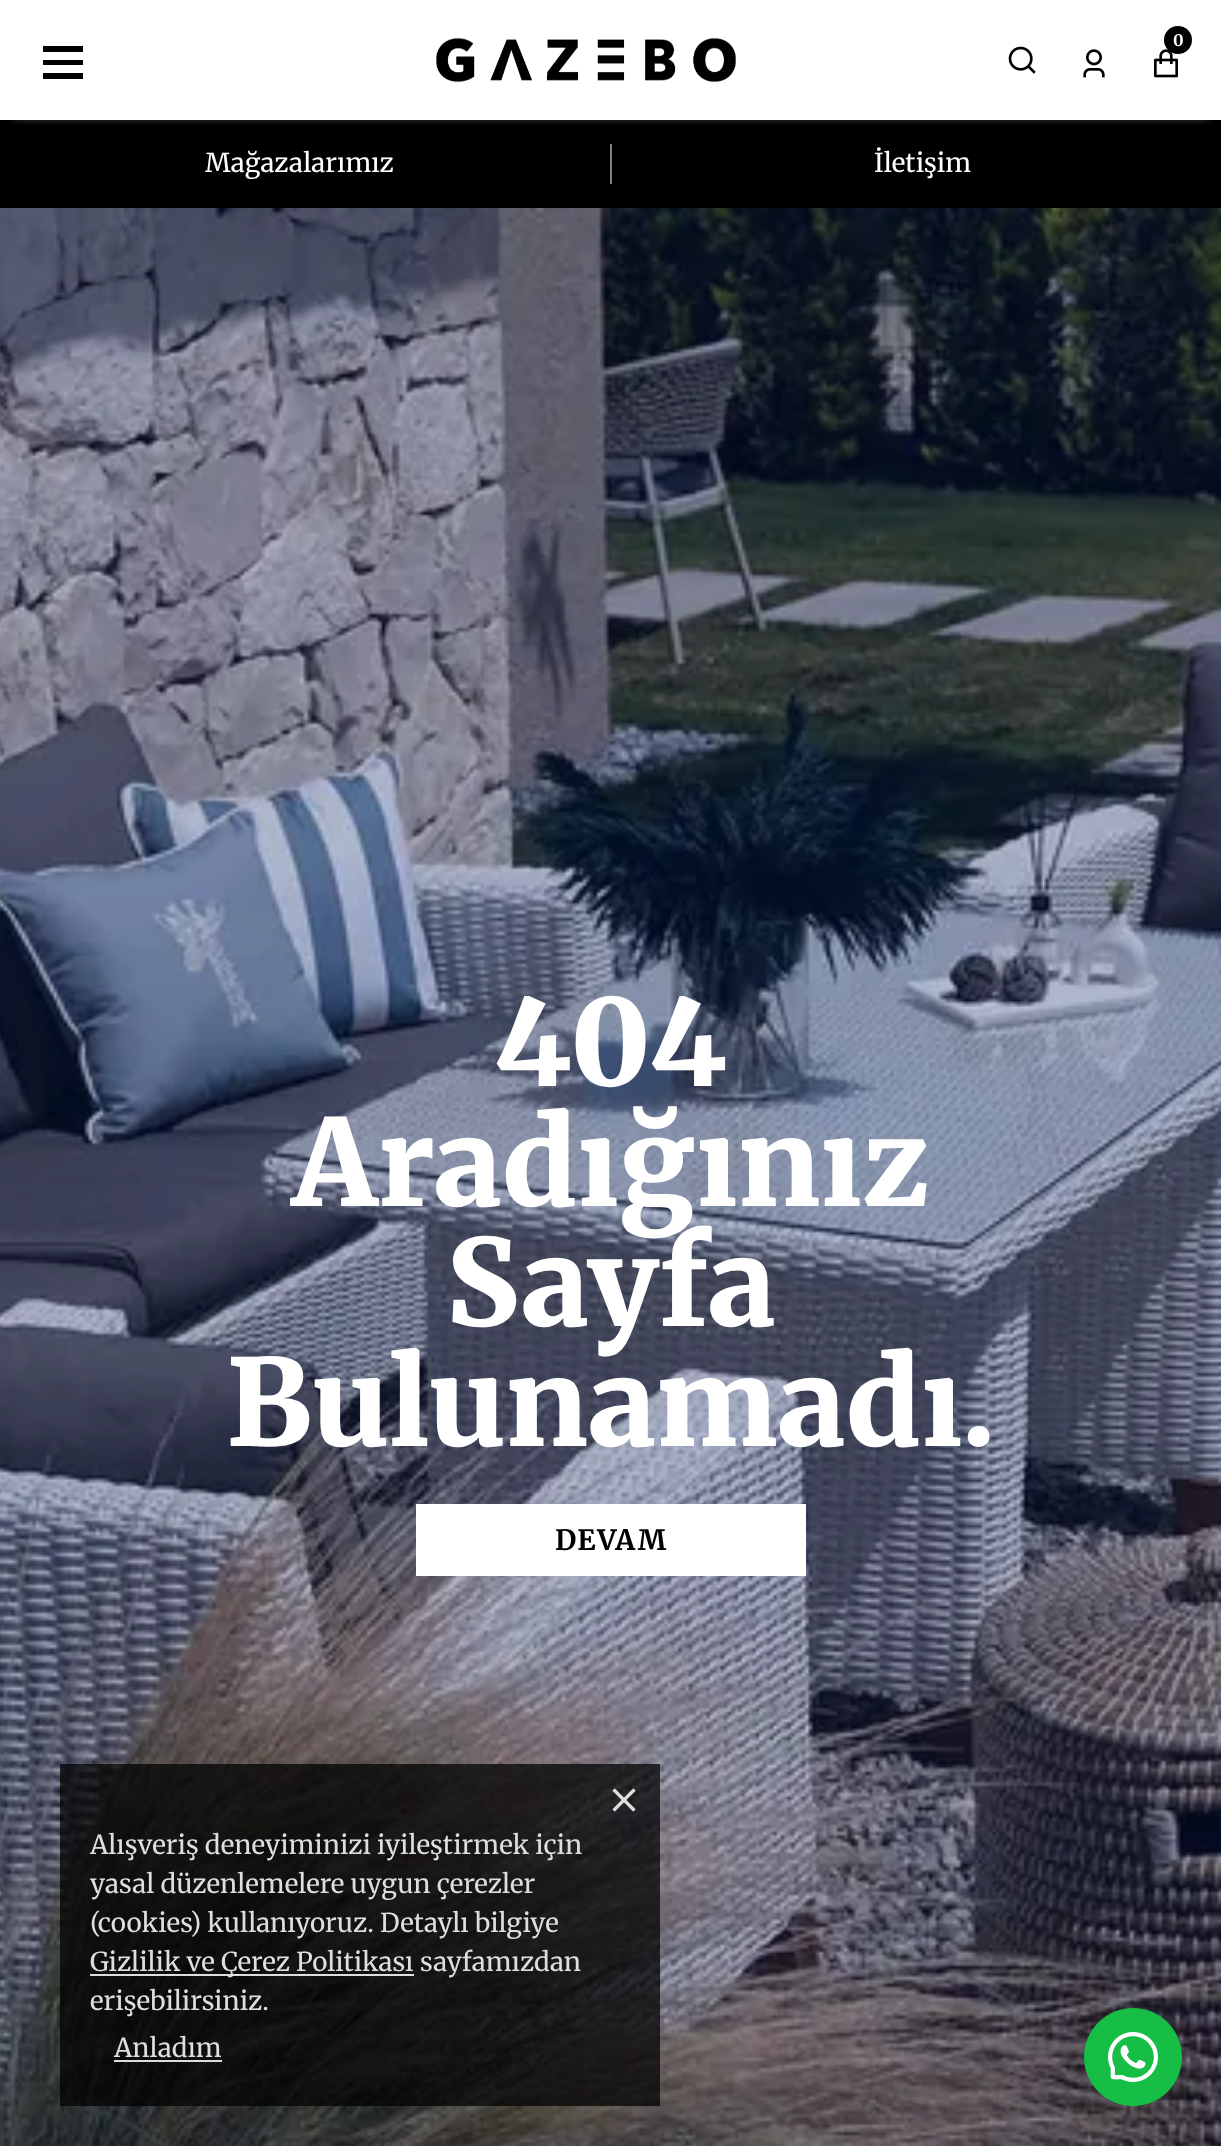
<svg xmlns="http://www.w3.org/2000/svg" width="1221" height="2146">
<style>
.a{font:bold 16px Merriweather;fill:#fff}
.b{font:26px Merriweather;fill:#fff}
.c{font:26px Merriweather;fill:#dedede}
.d{font:900 120px Merriweather;fill:#fff}
.e{font:bold 28px Merriweather;letter-spacing:1.5px;fill:#000}
</style>
<defs>
<clipPath id="clip1"><path d="M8 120h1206v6H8z"/></clipPath>
</defs>
<rect width="100%" height="100%" fill="#fff"/>
<path fill="#000" d="M0 120h1221v88H0z"/>
<g clip-path="url(#clip1)">
<path fill="#989898" filter="blur(5px)" d="M14 24h1194v92H14z"/>
</g>
<path fill="#000" d="M83 46v6h-40v-6zm-40 19h40v-5h-40zm0 14h40v-6h-40z"/>
<image href="1.png" x="436" y="38" width="300" height="45"/>
<image href="2.png" x="1154" y="49" width="24" height="29"/>
<circle fill="#000" cx="1178" cy="40" r="14"/>
<image href="3.png" x="1008" y="46" width="28" height="28"/>
<image href="4.png" x="1083" y="49" width="22" height="29"/>
<path fill="#808080" d="M610 144h2v40H610z"/>
<image href="6.png" x="0" y="208" width="1221" height="1938"/>
<path fill="#000000ba" d="M60 1764h600v342H60z"/>
<image href="5.png" x="612" y="1788" width="24" height="24"/>
<path fill="#ffffffdb" d="M90 1974h324v2H90z"/>
<path fill="#ffffffdb" d="M114 2060h108v2H114z"/>
<path fill="#fff" d="M416 1504h390v72H416z"/>
<circle fill="#16be45" cx="1133" cy="2057" r="49"/>
<image href="7.png" x="1108" y="2032" width="50" height="50"/>
<text class="a" x="1173" y="46">0</text>
<text class="b" x="205" y="172">Mağazalarımız</text>
<text class="b" x="874" y="172">İletişim</text>
<text class="c" x="90" y="1854">Alışveriş deneyiminizi iyileştirmek için</text>
<text class="c" x="90" y="1893">yasal düzenlemelere uygun çerezler</text>
<text class="c" x="90" y="1932">(cookies) kullanıyoruz. Detaylı bilgiye</text>
<text class="c" x="90" y="1971">Gizlilik ve Çerez Politikası</text>
<text class="c" x="420" y="1971">sayfamızdan</text>
<text class="c" x="90" y="2010">erişebilirsiniz.</text>
<text class="c" x="114" y="2057">Anladım</text>
<text class="d" x="494" y="1086">404</text>
<text class="d" x="292" y="1206">Aradığınız</text>
<text class="d" x="446" y="1326">Sayfa</text>
<text class="d" x="226" y="1446">Bulunamadı.</text>
<text class="e" x="555" y="1550">DEVAM</text>
</svg>
